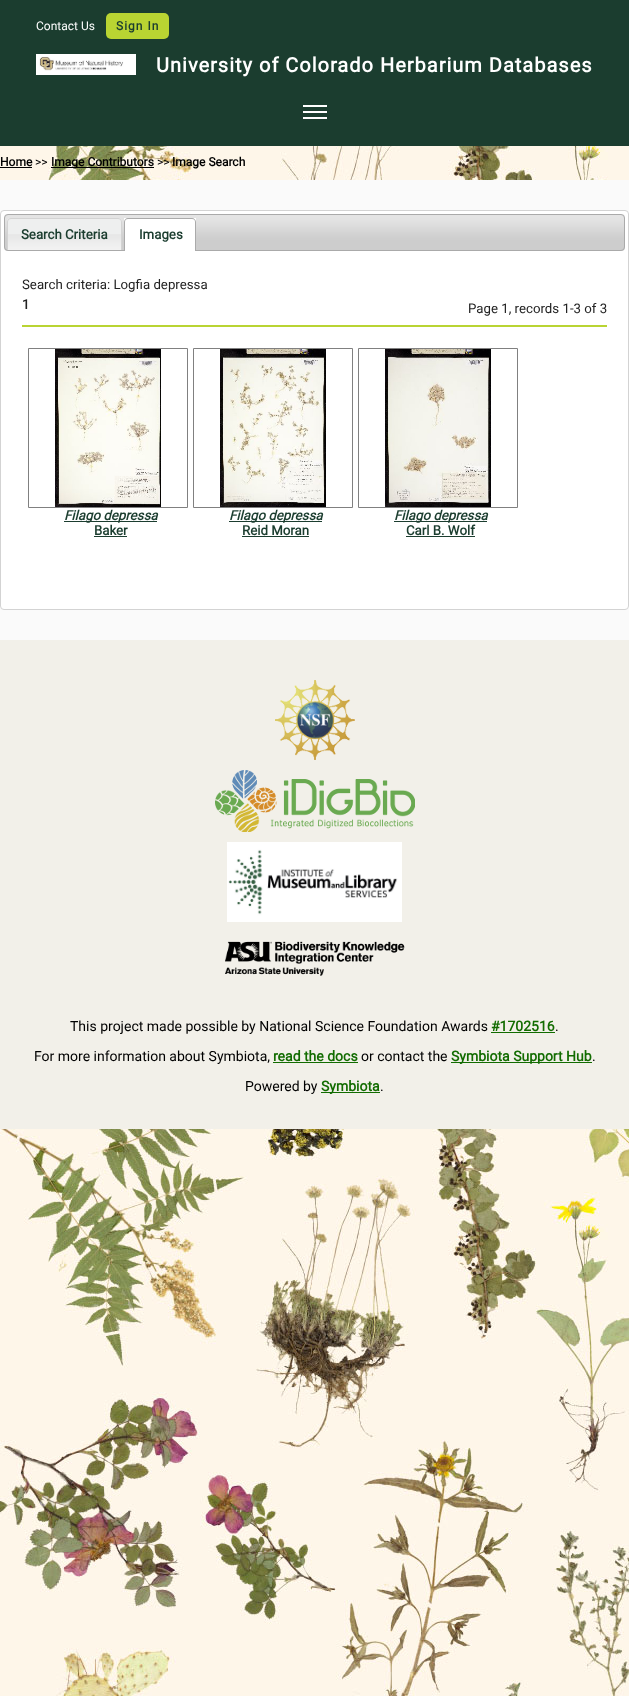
<svg xmlns="http://www.w3.org/2000/svg" width="629" height="1696">
<style>
.a{font:12px Roboto;fill:#fff}
.b{font:bold 12px Roboto;letter-spacing:1px;fill:#1b3d2f}
.c{font:bold 20px Roboto;letter-spacing:1px;fill:#fff}
.d{font:bold 12px Roboto;fill:#000}
.e{font:12px Roboto;fill:#000}
.f{font:bold 13.25px Roboto;fill:#1b3d2f}
.g{font:13.25px Roboto;fill:#222}
.h{font:bold 13.25px Roboto;fill:#222}
.i{font:italic bold 13.25px Roboto;fill:#1b3d2f}
.j{font:14px Roboto;fill:#000}
.k{font:bold 14px Roboto;fill:#126c00}
</style>
<rect width="100%" height="100%" fill="#fff"/>
<image href="1.png" x="0" y="146" width="629" height="1550"/>
<path fill="#1b3d2f" d="M0 0h629v146H0z"/>
<rect fill="#b9d432" x="106" y="13" width="63" height="26" rx="5"/>
<image href="2.png" x="36" y="54" width="100" height="21"/>
<path fill="#fff" d="M303 111h24v2H303z"/>
<path fill="#fff" d="M303 105h24v2H303z"/>
<path fill="#fff" d="M303 117h24v2H303z"/>
<path fill="#000" d="M0 167h32v1H0z"/>
<path fill="#000" d="M51 167h103v1H51z"/>
<path fill="#fafafa" d="M0 180h629v460H0z"/>
<rect fill="#fff" stroke="#d3d3d3" x="0.5" y="210.5" width="628" height="399" rx="3.5"/>
<image href="3.png" x="4" y="214" width="621" height="37"/>
<rect fill="none" stroke="#aaa" x="4.5" y="214.5" width="620" height="36" rx="3.5"/>
<image href="4.png" x="7" y="218" width="115" height="32"/>
<path fill="#d3d3d3" fill-rule="evenodd" d="M11 218h107c2 0 4 2 4 4v28h-115v-28c0-2 2-4 4-4zm0 1h107c2 0 3 1 3 3v28h-113v-28c0-2 1-3 3-3z"/>
<path fill="#fff" d="M124 218h72v33H124z"/>
<path fill="#aaa" fill-rule="evenodd" d="M128 218h64c2 0 4 2 4 4v29h-72v-29c0-2 2-4 4-4zm0 1h64c2 0 3 1 3 3v29h-70v-29c0-2 1-3 3-3z"/>
<path fill="#b9d432" d="M22 325h585v2H22z"/>
<path fill="none" stroke="#808080" d="M28.5 348.5h159v159H28.5z"/>
<image href="5.png" x="55" y="349" width="106" height="158"/>
<path fill="#1b3d2f" d="M64 521h93v1H64z"/>
<path fill="#1b3d2f" d="M94 536h33v1H94z"/>
<path fill="none" stroke="#808080" d="M193.5 348.5h159v159H193.5z"/>
<image href="6.png" x="220" y="349" width="106" height="158"/>
<path fill="#1b3d2f" d="M229 521h93v1H229z"/>
<path fill="#1b3d2f" d="M242 536h67v1H242z"/>
<path fill="none" stroke="#808080" d="M358.5 348.5h159v159H358.5z"/>
<image href="7.png" x="385" y="349" width="106" height="158"/>
<path fill="#1b3d2f" d="M394 521h93v1H394z"/>
<path fill="#1b3d2f" d="M406 536h69v1H406z"/>
<path fill="#f2f0e9" d="M0 640h629v489H0z"/>
<image href="8.png" x="275" y="680" width="80" height="80"/>
<image href="9.png" x="215" y="770" width="200" height="62"/>
<image href="10.png" x="227" y="842" width="175" height="80"/>
<image href="11.png" x="225" y="941" width="180" height="35"/>
<path fill="#126c00" d="M491 1032h64v1H491z"/>
<path fill="#126c00" d="M273 1062h85v1H273z"/>
<path fill="#126c00" d="M451 1062h141v1H451z"/>
<path fill="#126c00" d="M321 1092h59v1H321z"/>
<text class="a" x="36" y="30">Contact Us</text>
<text class="b" x="116" y="30">Sign In</text>
<text class="c" x="156" y="72">University of Colorado Herbarium Databases</text>
<text class="d" x="0" y="166">Home</text>
<text class="e" x="35" y="166">&gt;&gt;</text>
<text class="d" x="51" y="166">Image Contributors</text>
<text class="e" x="157" y="166">&gt;&gt;</text>
<text class="d" x="172" y="166">Image Search</text>
<text class="f" x="21" y="239">Search Criteria</text>
<text class="f" x="139" y="239">Images</text>
<text class="g" x="22" y="289">Search criteria: Logfia depressa</text>
<text class="h" x="22" y="309">1</text>
<text class="g" x="468" y="313">Page 1, records 1-3 of 3</text>
<text class="i" x="64" y="520">Filago depressa</text>
<text class="f" x="94" y="535">Baker</text>
<text class="i" x="229" y="520">Filago depressa</text>
<text class="f" x="242" y="535">Reid Moran</text>
<text class="i" x="394" y="520">Filago depressa</text>
<text class="f" x="406" y="535">Carl B. Wolf</text>
<text class="j" x="70" y="1031">This project made possible by National Science Foundation Awards</text>
<text class="k" x="491" y="1031">#1702516</text>
<text class="j" x="555" y="1031">.</text>
<text class="j" x="34" y="1061">For more information about Symbiota,</text>
<text class="k" x="273" y="1061">read the docs</text>
<text class="j" x="361" y="1061">or contact the</text>
<text class="k" x="451" y="1061">Symbiota Support Hub</text>
<text class="j" x="592" y="1061">.</text>
<text class="j" x="245" y="1091">Powered by</text>
<text class="k" x="321" y="1091">Symbiota</text>
<text class="j" x="380" y="1091">.</text>
</svg>
